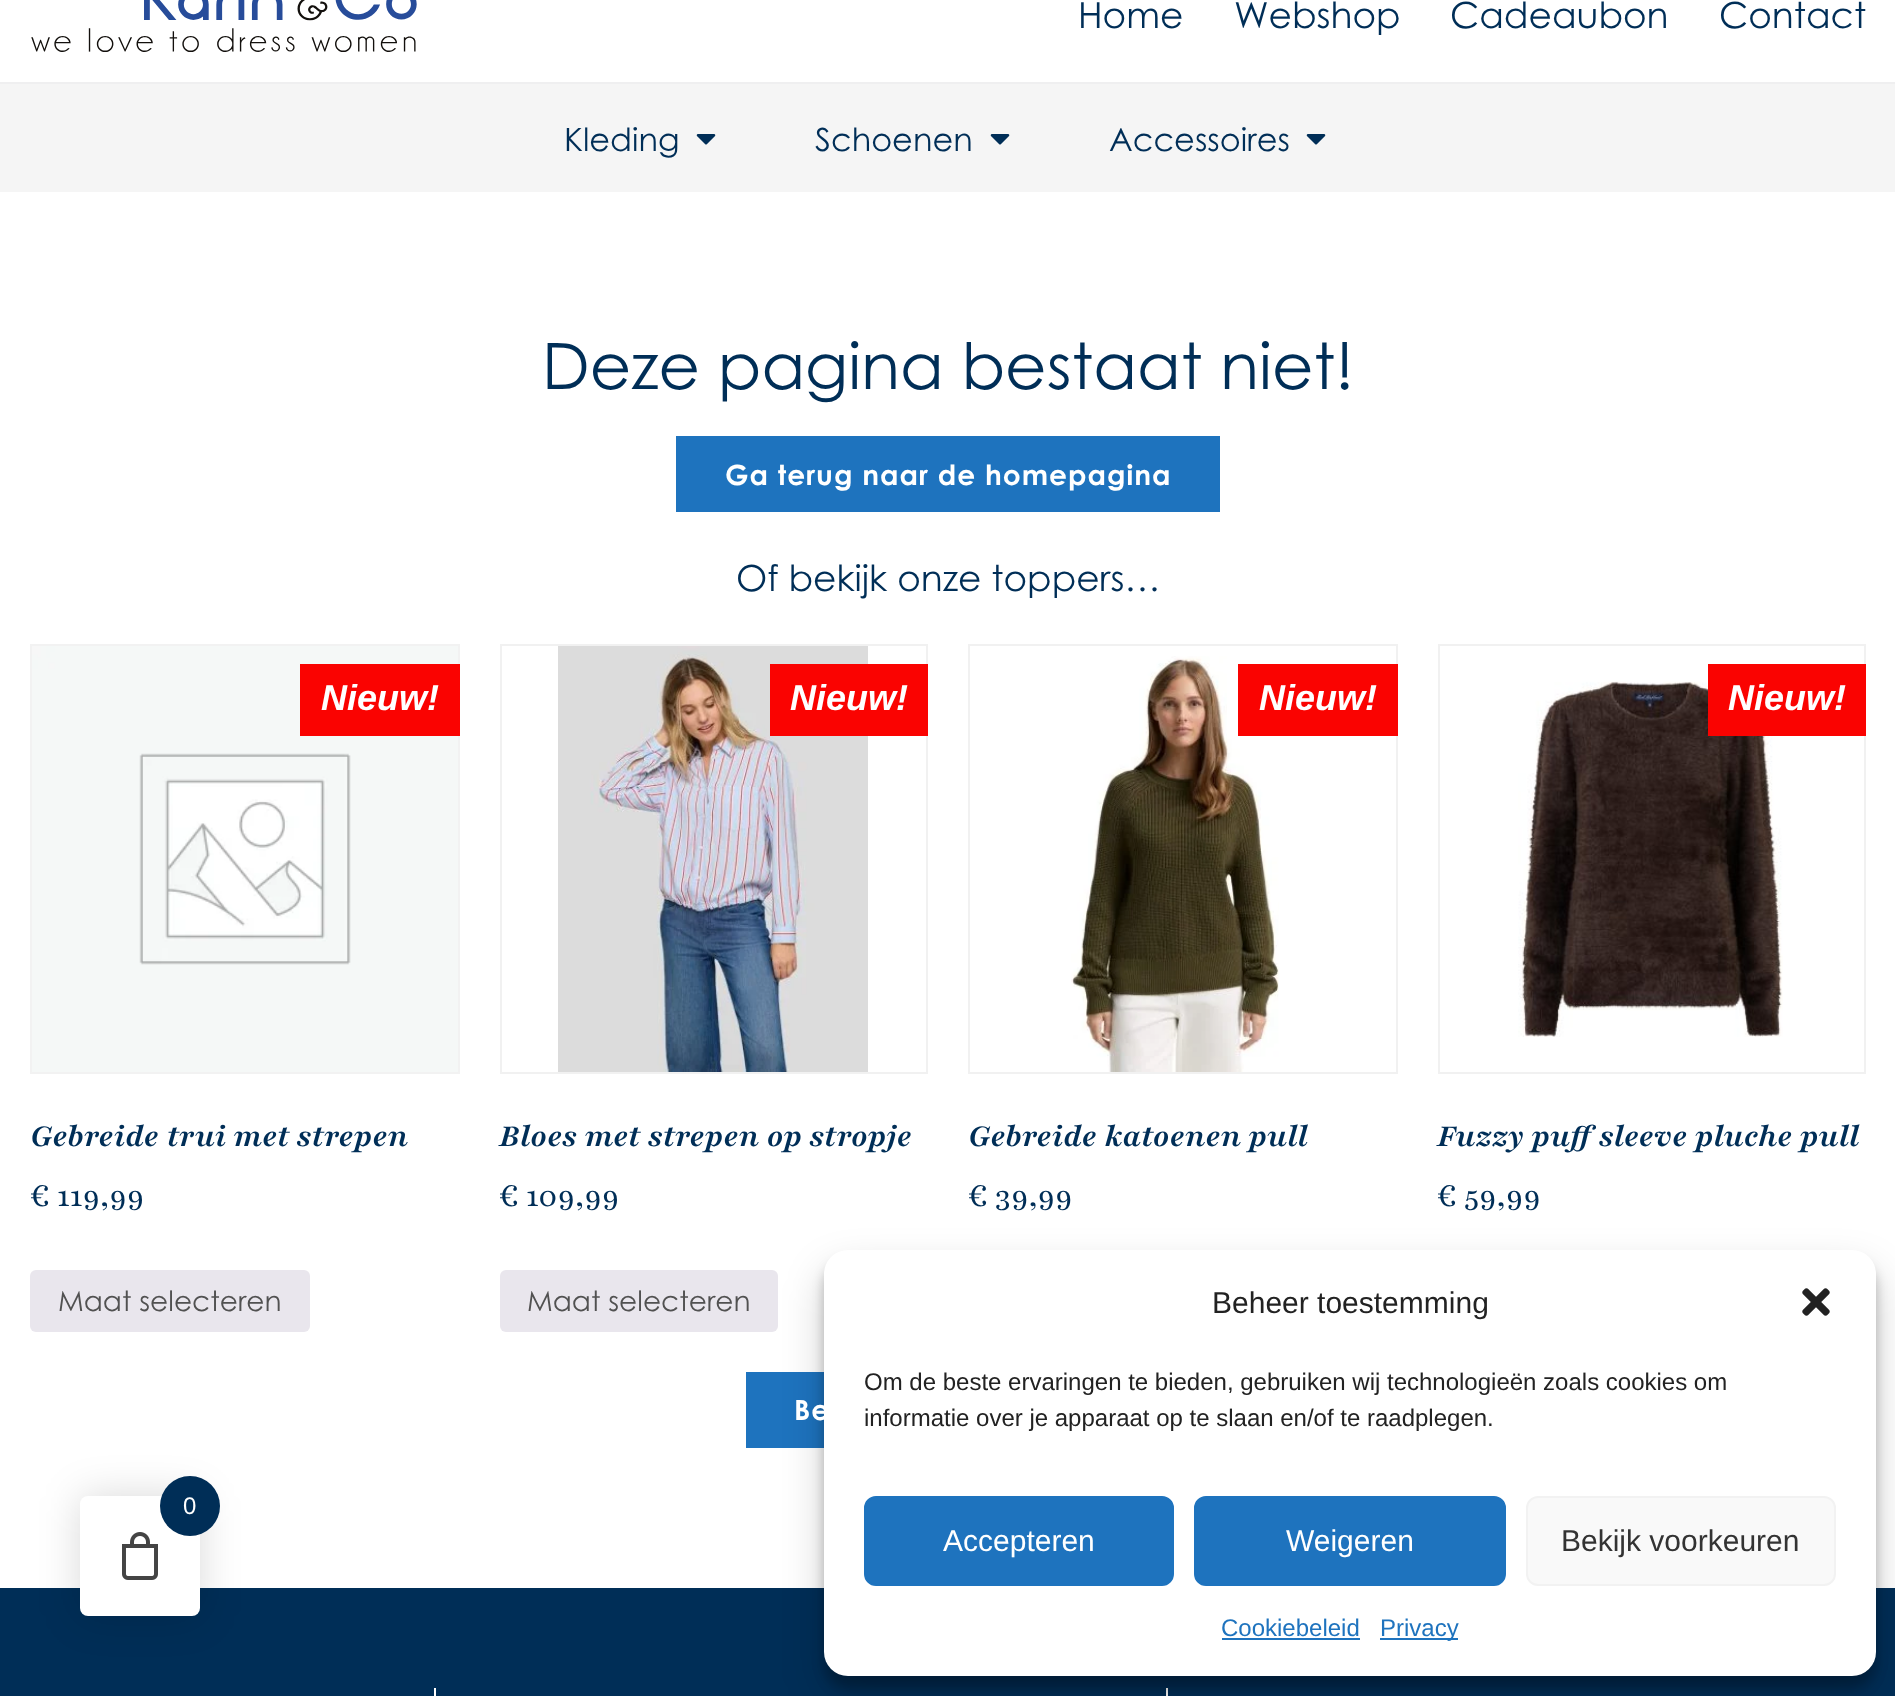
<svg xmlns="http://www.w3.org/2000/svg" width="1895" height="1696">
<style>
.a{font:36px Century Gothic;fill:#002e57}
.b{font:32px Century Gothic;fill:#002e57}
.c{font:64px Century Gothic;fill:#002e57}
.d{font:bold 28px Century Gothic;letter-spacing:1px;fill:#fff}
.e{font:italic bold 36px Liberation Sans;fill:#fff}
.f{font:italic bold 34px 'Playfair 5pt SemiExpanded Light';fill:#002e57}
.g{font:36px 'Playfair 5pt SemiExpanded Light';fill:#002e57}
.h{font:28px Century Gothic;fill:#515151}
.i{font:24px Liberation Sans;fill:#fff}
.j{font:30px Liberation Sans;fill:#222}
.k{font:24px Liberation Sans;fill:#222}
.l{font:30px Liberation Sans;fill:#fff}
.m{font:30px Liberation Sans;fill:#333}
.n{font:24px Liberation Sans;fill:#1e73be}
</style>
<rect width="100%" height="100%" fill="#fff"/>
<path fill="#efeff0" d="M0 82h1895v2H0z"/>
<image href="1.png" x="31" y="0" width="386" height="52"/>
<path fill="#f5f5f5" d="M0 84h1895v108H0z"/>
<image href="2.png" x="696" y="134" width="20" height="11"/>
<image href="2.png" x="990" y="134" width="20" height="11"/>
<image href="2.png" x="1306" y="134" width="20" height="11"/>
<path fill="#1e73be" d="M676 436h544v76H676z"/>
<path fill="none" stroke="#f2f2f2" stroke-width="2" d="M31 645h428v428H31z"/>
<image href="3.png" x="32" y="646" width="426" height="426"/>
<path fill="#fa0301" d="M300 664h160v72H300z"/>
<rect fill="#e9e6ed" x="30" y="1270" width="280" height="62" rx="6"/>
<path fill="none" stroke="#f1f1f1" stroke-width="2" d="M501 645h426v428H501z"/>
<image href="4.png" x="558" y="646" width="310" height="426"/>
<path fill="#fa0301" d="M770 664h158v72H770z"/>
<rect fill="#e9e6ed" x="500" y="1270" width="278" height="62" rx="6"/>
<path fill="none" stroke="#f1f1f1" stroke-width="2" d="M969 645h428v428H969z"/>
<image href="5.png" x="1071" y="656" width="208" height="416"/>
<path fill="#fa0301" d="M1238 664h160v72H1238z"/>
<path fill="none" stroke="#f1f1f1" stroke-width="2" d="M1439 645h426v428H1439z"/>
<image href="6.png" x="1518" y="681" width="265" height="356"/>
<path fill="#fa0301" d="M1708 664h158v72H1708z"/>
<path fill="#1e73be" d="M746 1372h78v76H746z"/>
<path fill="#002e57" d="M0 1588h1895v108H0z"/>
<rect fill="#00000026" filter="blur(20px)" x="80" y="1496" width="120" height="120" rx="8"/>
<rect fill="#fff" x="80" y="1496" width="120" height="120" rx="8"/>
<circle fill="#002e57" cx="190" cy="1506" r="30"/>
<image href="7.png" x="122" y="1532" width="36" height="48"/>
<path fill="#fff" d="M1166 1688h2v8H1166z"/>
<rect fill="#0000003b" filter="blur(6px)" x="824" y="1262" width="1052" height="426" rx="24"/>
<rect fill="#00000030" filter="blur(20px)" x="824" y="1270" width="1052" height="426" rx="24"/>
<rect fill="#fff" x="824" y="1250" width="1052" height="426" rx="24"/>
<image href="8.png" x="1802" y="1288" width="28" height="28"/>
<rect fill="#1e73be" stroke="#1e73be" stroke-width="2" x="865" y="1497" width="308" height="88" rx="11"/>
<rect fill="#1e73be" stroke="#1e73be" stroke-width="2" x="1195" y="1497" width="310" height="88" rx="11"/>
<rect fill="#f9f9f9" stroke="#f2f2f2" stroke-width="2" x="1527" y="1497" width="308" height="88" rx="11"/>
<path fill="#1e73be" d="M1222 1638h138v2H1222z"/>
<path fill="#1e73be" d="M1380 1638h78v2H1380z"/>
<path fill="#fff" d="M434 1688h2v8H434z"/>
<text class="a" x="1078" y="28">Home</text>
<text class="a" x="1234" y="28">Webshop</text>
<text class="a" x="1450" y="28">Cadeaubon</text>
<text class="a" x="1719" y="28">Contact</text>
<text class="b" x="564" y="151">Kleding</text>
<text class="b" x="815" y="151">Schoenen</text>
<text class="b" x="1109" y="151">Accessoires</text>
<text class="c" x="542" y="389">Deze pagina bestaat niet!</text>
<text class="d" x="725" y="485">Ga terug naar de homepagina</text>
<text class="a" x="736" y="591">Of bekijk onze toppers…</text>
<text class="e" x="321" y="710">Nieuw!</text>
<text class="f" x="30" y="1146">Gebreide trui met strepen</text>
<text class="g" x="30" y="1206">€ 119,99</text>
<text class="h" x="58" y="1311">Maat selecteren</text>
<text class="e" x="790" y="710">Nieuw!</text>
<text class="f" x="499" y="1146">Bloes met strepen op stropje</text>
<text class="g" x="499" y="1206">€ 109,99</text>
<text class="h" x="527" y="1311">Maat selecteren</text>
<text class="e" x="1259" y="710">Nieuw!</text>
<text class="f" x="968" y="1146">Gebreide katoenen pull</text>
<text class="g" x="968" y="1206">€ 39,99</text>
<text class="e" x="1728" y="710">Nieuw!</text>
<text class="f" x="1437" y="1146">Fuzzy puff sleeve pluche pull</text>
<text class="g" x="1437" y="1206">€ 59,99</text>
<text class="d" x="794" y="1420">Be</text>
<text class="i" x="183" y="1514">0</text>
<text class="j" x="1212" y="1313">Beheer toestemming</text>
<text class="k" x="864" y="1390">Om de beste ervaringen te bieden, gebruiken wij technologieën zoals cookies om</text>
<text class="k" x="864" y="1426">informatie over je apparaat op te slaan en/of te raadplegen.</text>
<text class="l" x="943" y="1551">Accepteren</text>
<text class="l" x="1286" y="1551">Weigeren</text>
<text class="m" x="1561" y="1551">Bekijk voorkeuren</text>
<text class="n" x="1221" y="1636">Cookiebeleid</text>
<text class="n" x="1380" y="1636">Privacy</text>
</svg>
